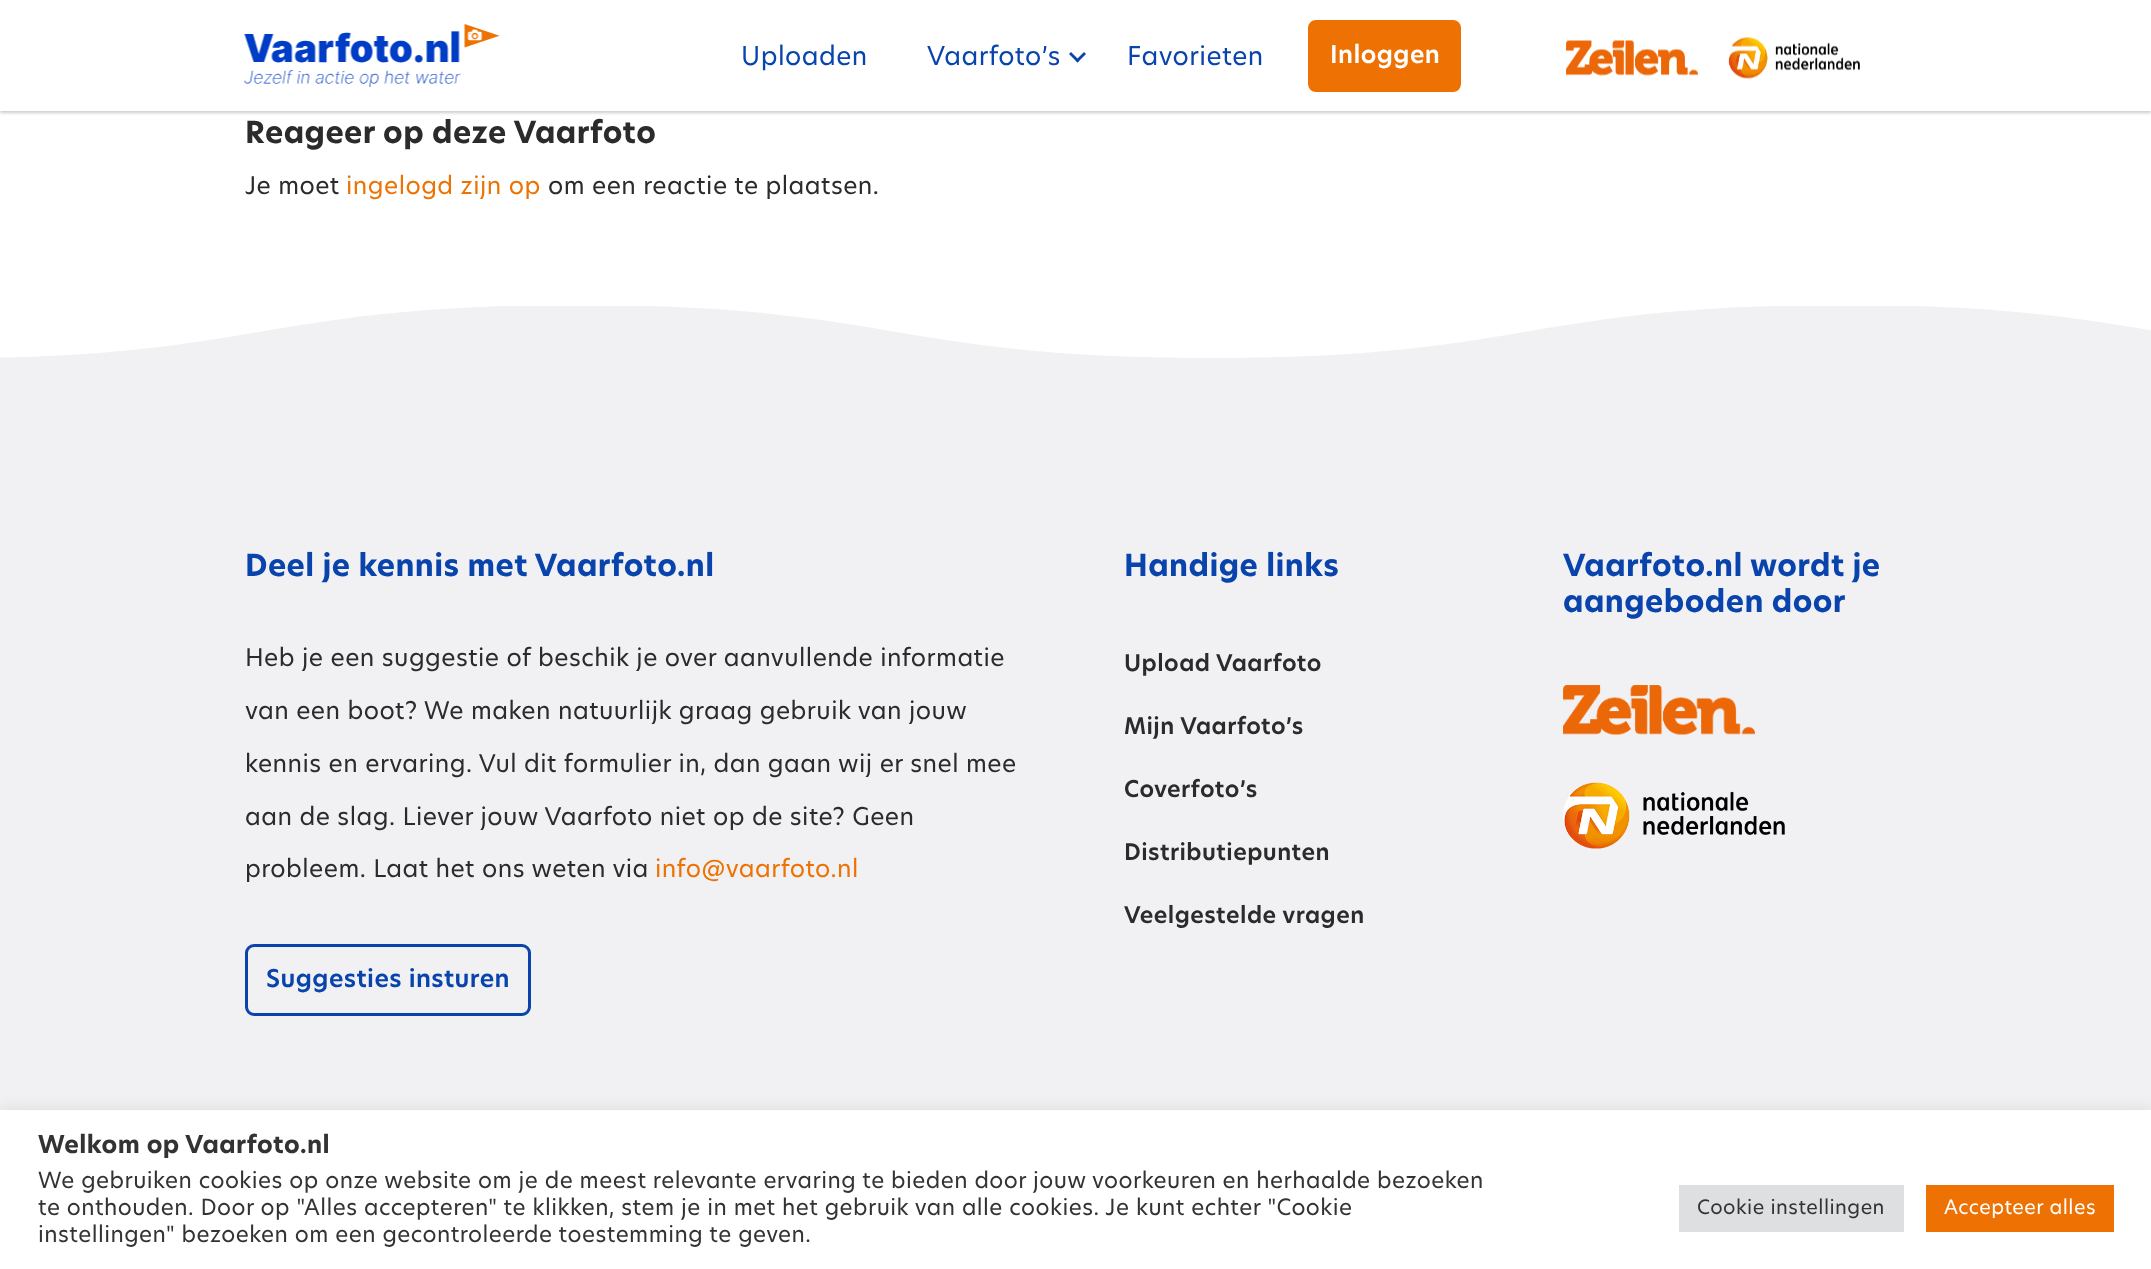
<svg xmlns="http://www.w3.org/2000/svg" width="2151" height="1269">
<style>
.a{font:25.5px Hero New;letter-spacing:0.45px;fill:#0944ad}
.b{font:600 24px Hero New;letter-spacing:0.45px;fill:#fff}
.c{font:bold 30px Hero New;letter-spacing:0.45px;fill:#2b2b2b}
.d{font:24px Hero New;letter-spacing:0.45px;fill:#2b2b2b}
.e{font:24px Hero New;letter-spacing:0.45px;fill:#ed7203}
.f{font:bold 30px Hero New;letter-spacing:0.45px;fill:#0944ad}
.g{font:600 24px Hero New;letter-spacing:0.45px;fill:#0944ad}
.h{font:600 22.5px Hero New;letter-spacing:0.45px;fill:#2b2b2b}
.i{font:bold 24px Hero New;letter-spacing:0.45px;fill:#333}
.j{font:22px Hero New;letter-spacing:0.45px;fill:#333}
.k{font:19.5px Hero New;letter-spacing:0.45px;fill:#333}
.l{font:19.5px Hero New;letter-spacing:0.45px;fill:#fff}
</style>
<defs>
<clipPath id="clip1"><path d="M0 306h2151v104H0z"/></clipPath>
</defs>
<rect width="100%" height="100%" fill="#fff"/>
<path fill="#00000033" filter="blur(1.5px)" d="M0 2h2151v111H0z"/>
<path fill="#fff" d="M0 0h2151v111H0z"/>
<image href="1.png" x="244" y="24" width="256" height="63"/>
<path fill="#0944ad" d="M1084 52l2 2l-8.5 8.5l-2-2z"/>
<path fill="#0944ad" d="M1071 52l8.5 8.5l-2 2l-8.5-8.5z"/>
<rect fill="#ed7203" stroke="#ed7203" stroke-width="3" x="1309.5" y="21.5" width="150" height="69" rx="6.5"/>
<image href="2.png" x="1566" y="40" width="132" height="36"/>
<image href="3.png" x="1728" y="37" width="132" height="42"/>
<g clip-path="url(#clip1)">
<path fill="#f1f1f4" d="M578 305c316 0 316 53 633 53c316 0 316-53 633-53c166 0 245 15 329 29v77h-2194v-53c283-4 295-53 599-53z"/>
</g>
<path fill="#f1f1f4" d="M0 410h2151v700H0z"/>
<rect fill="none" stroke="#0944ad" stroke-width="3" x="246.5" y="945.5" width="283" height="69" rx="7.5"/>
<image href="4.png" x="1563" y="685" width="192" height="50"/>
<image href="5.png" x="1563" y="782" width="222" height="67"/>
<path fill="#acabab4d" filter="blur(7.5px)" d="M0 1109h2151v159H0z"/>
<path fill="#fff" d="M0 1110h2151v159H0z"/>
<path fill="#dedfe0" d="M1679 1185h225v47H1679z"/>
<path fill="#ed7203" d="M1926 1185h188v47H1926z"/>
<text class="a" x="741" y="65">Uploaden</text>
<text class="a" x="927" y="65">Vaarfoto’s</text>
<text class="a" x="1127" y="65">Favorieten</text>
<text class="b" x="1330" y="63">Inloggen</text>
<text class="c" x="245" y="143">Reageer op deze Vaarfoto</text>
<text class="d" x="245" y="194">Je moet</text>
<text class="e" x="346" y="194">ingelogd zijn op</text>
<text class="d" x="548" y="194">om een reactie te plaatsen.</text>
<text class="f" x="245" y="576">Deel je kennis met Vaarfoto.nl</text>
<text class="d" x="245" y="666">Heb je een suggestie of beschik je over aanvullende informatie</text>
<text class="d" x="245" y="719">van een boot? We maken natuurlijk graag gebruik van jouw</text>
<text class="d" x="245" y="772">kennis en ervaring. Vul dit formulier in, dan gaan wij er snel mee</text>
<text class="d" x="245" y="825">aan de slag. Liever jouw Vaarfoto niet op de site? Geen</text>
<text class="d" x="245" y="877">probleem. Laat het ons weten via</text>
<text class="e" x="655" y="877">info@vaarfoto.nl</text>
<text class="g" x="266" y="987">Suggesties insturen</text>
<text class="f" x="1124" y="576">Handige links</text>
<text class="h" x="1124" y="671">Upload Vaarfoto</text>
<text class="h" x="1124" y="734">Mijn Vaarfoto’s</text>
<text class="h" x="1124" y="797">Coverfoto’s</text>
<text class="h" x="1124" y="860">Distributiepunten</text>
<text class="h" x="1124" y="923">Veelgestelde vragen</text>
<text class="f" x="1563" y="576">Vaarfoto.nl wordt je</text>
<text class="f" x="1563" y="612">aangeboden door</text>
<text class="i" x="38" y="1153">Welkom op Vaarfoto.nl</text>
<text class="j" x="38" y="1188">We gebruiken cookies op onze website om je de meest relevante ervaring te bieden door jouw voorkeuren en herhaalde bezoeken</text>
<text class="j" x="38" y="1215">te onthouden. Door op "Alles accepteren" te klikken, stem je in met het gebruik van alle cookies. Je kunt echter "Cookie</text>
<text class="j" x="38" y="1242">instellingen" bezoeken om een gecontroleerde toestemming te geven.</text>
<text class="k" x="1697" y="1214">Cookie instellingen</text>
<text class="l" x="1944" y="1214">Accepteer alles</text>
</svg>
